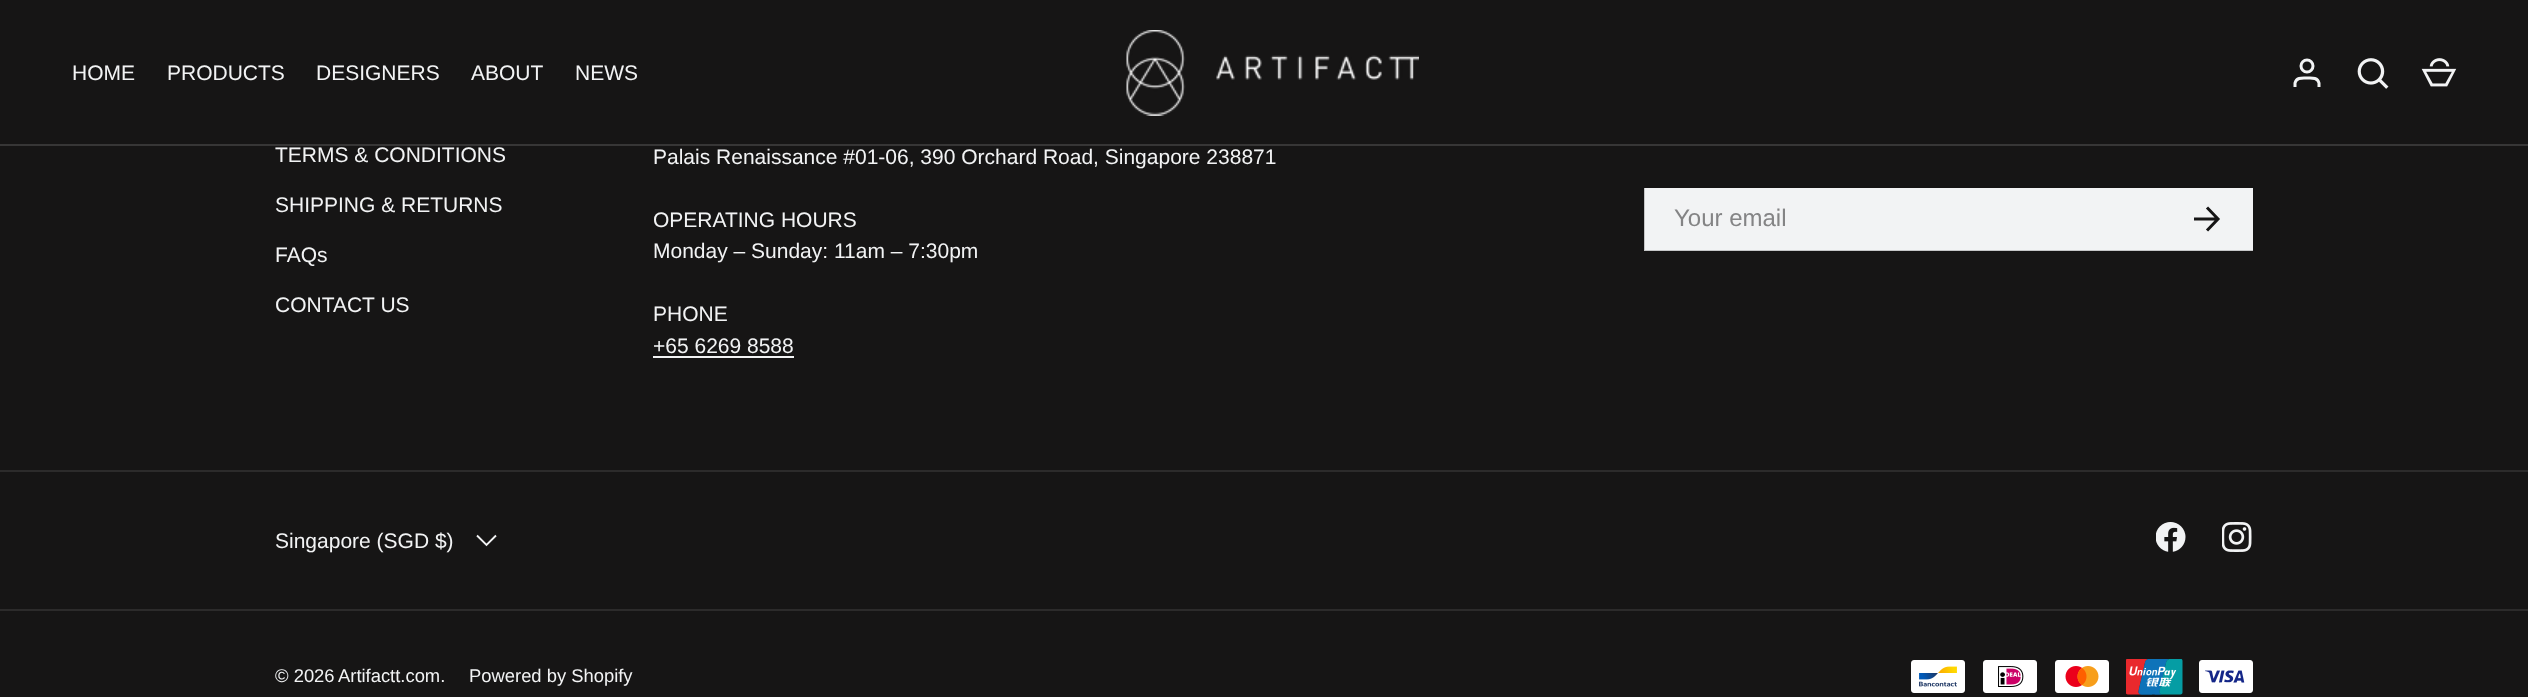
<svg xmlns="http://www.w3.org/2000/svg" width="2528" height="697">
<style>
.a{font:21px Liberation Sans;fill:#f2f3f4}
.b{font:24px Liberation Sans;fill:#848485}
.c{font:18.4px Liberation Sans;fill:#f2f3f4}
</style>
<rect width="100%" height="100%" fill="#161515"/>
<image href="1.png" x="1126" y="30" width="293" height="86"/>
<circle fill="none" stroke="#f2f3f4" stroke-width="3" cx="2307" cy="66" r="6"/>
<path fill="none" stroke="#f2f3f4" stroke-width="3" d="M2319 87v-4c-1.5-6-7.5-5-12-5c-4.5 0-10.5-1-12 5v4"/>
<image href="2.png" x="2357" y="58" width="32" height="31"/>
<image href="3.png" x="2421" y="58" width="36" height="29"/>
<path fill="#373636" d="M0 144h2528v2H0z"/>
<path fill="#f2f3f4" d="M653 356h141v2H653z"/>
<path fill="#f2f3f4" d="M1644 188h609v63H1644z"/>
<path fill="none" stroke="#16151533" stroke-width="2" d="M1644 187h610v64H1644z"/>
<path fill="none" stroke="#161515" stroke-width="3" d="M2207 230.5l12-12.5m-25 1h23.5m-10.5-11.5l12 12.5"/>
<path fill="#2c2b2b" d="M0 470h2528v2H0z"/>
<path fill="none" stroke="#f2f3f4" stroke-width="1.9" d="M496 535.5l-9.5 9.5l-9.5-9.5"/>
<image href="4.png" x="2156" y="522" width="30" height="30"/>
<image href="5.png" x="2222" y="522" width="30" height="30"/>
<path fill="#2c2b2b" d="M0 609h2528v2H0z"/>
<image href="6.png" x="1911" y="660" width="54" height="33"/>
<image href="7.png" x="1983" y="660" width="54" height="33"/>
<image href="8.png" x="2055" y="660" width="54" height="33"/>
<image href="9.png" x="2126" y="659" width="57" height="36"/>
<image href="10.png" x="2199" y="660" width="54" height="33"/>
<text class="a" x="72" y="80">HOME</text>
<text class="a" x="167" y="80">PRODUCTS</text>
<text class="a" x="316" y="80">DESIGNERS</text>
<text class="a" x="471" y="80">ABOUT</text>
<text class="a" x="575" y="80">NEWS</text>
<text class="a" x="275" y="162">TERMS &amp; CONDITIONS</text>
<text class="a" x="275" y="212">SHIPPING &amp; RETURNS</text>
<text class="a" x="275" y="262">FAQs</text>
<text class="a" x="275" y="312">CONTACT US</text>
<text class="a" x="653" y="164">Palais Renaissance #01-06, 390 Orchard Road, Singapore 238871</text>
<text class="a" x="653" y="227">OPERATING HOURS</text>
<text class="a" x="653" y="258">Monday – Sunday: 11am – 7:30pm</text>
<text class="a" x="653" y="321">PHONE</text>
<text class="a" x="653" y="353">+65 6269 8588</text>
<text class="b" x="1674" y="226">Your email</text>
<text class="a" x="275" y="548">Singapore (SGD $)</text>
<text class="c" x="275" y="682">© 2026</text>
<text class="c" x="338" y="682">Artifactt.com.</text>
<text class="c" x="469" y="682">Powered by Shopify</text>
</svg>
